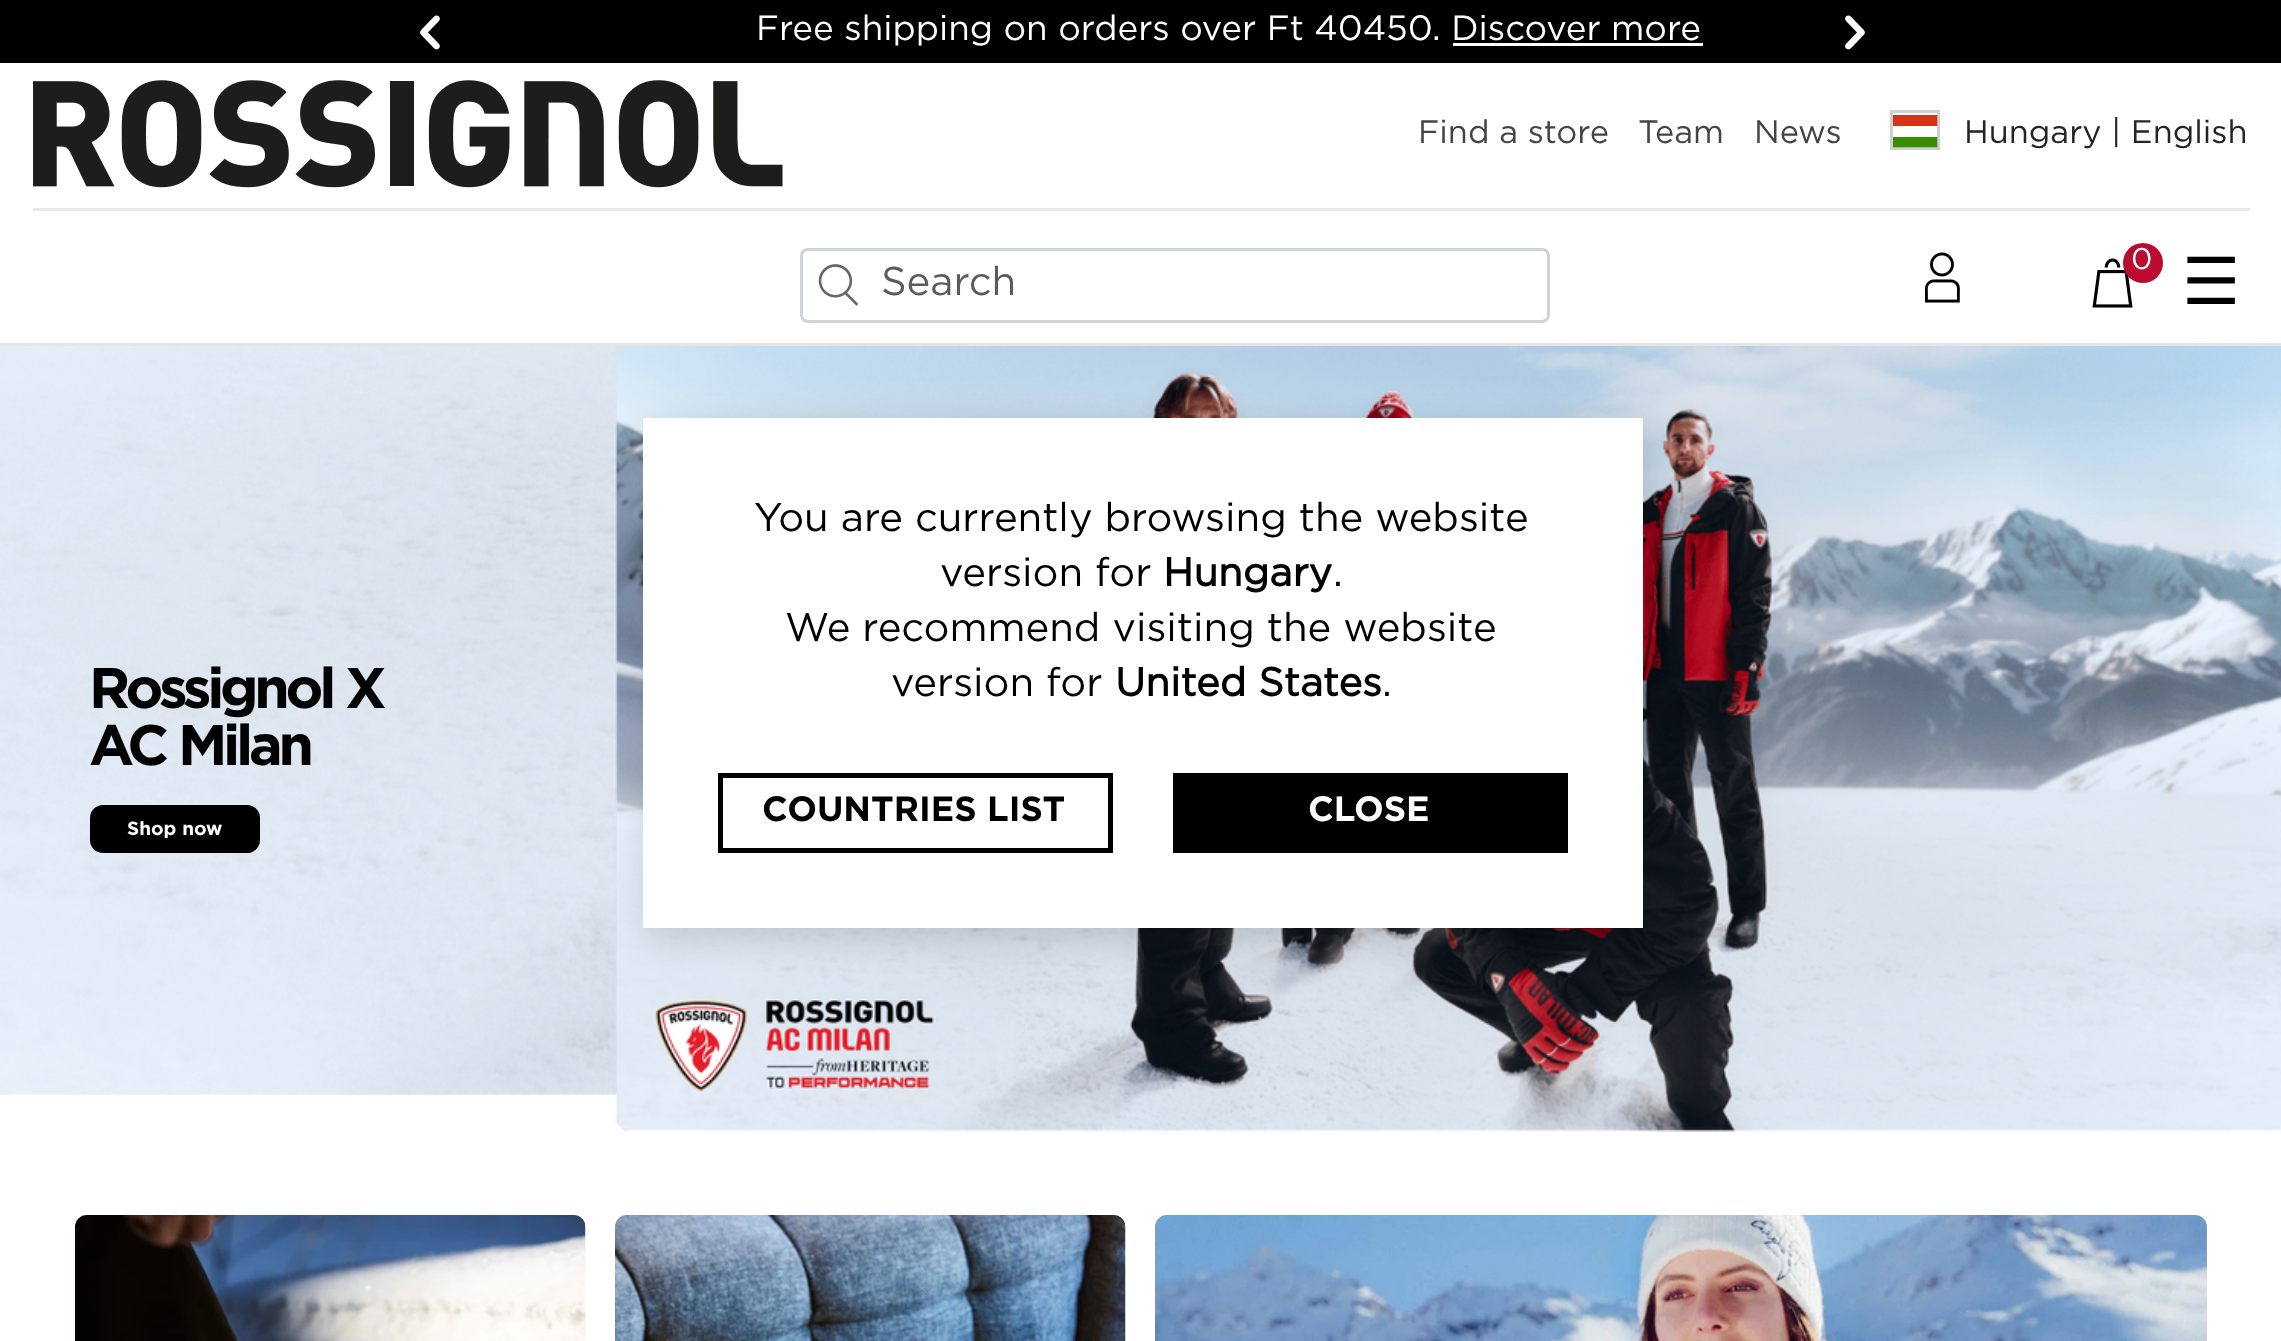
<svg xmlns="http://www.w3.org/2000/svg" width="2281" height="1341">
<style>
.a{font:35px Gotham;fill:#fff}
.b{font:32.5px Gotham;fill:#444}
.c{font:32.5px Gotham;fill:#212529}
.d{font:40px Gotham;fill:#595c5f}
.e{font:30px Gotham;fill:#fff}
.f{font:65px DejaVu Sans;fill:#000}
.g{font:bold 57px Gotham;letter-spacing:-4.25px;fill:#000}
.h{font:bold 19px Gotham;fill:#fff}
.i{font:40px Gotham;fill:#000}
.j{font:bold 40px 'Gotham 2';fill:#000}
.k{font:bold 35px Gotham;fill:#000}
.l{font:bold 35px Gotham;fill:#fff}
</style>
<rect width="100%" height="100%" fill="#fff"/>
<path fill="#000" d="M0 0h2281v63H0z"/>
<image href="1.png" x="420" y="15" width="20" height="35"/>
<path fill="#fff" d="M1453 43h250v3H1453z"/>
<image href="2.png" x="1845" y="15" width="20" height="35"/>
<path fill="#e9e9e9" d="M33 208h2217v3H33z"/>
<image href="3.png" x="33" y="80" width="750" height="108"/>
<path fill="#388d00" d="M1893 137h45v11H1893z"/>
<path fill="#d43516" d="M1893 115h45v11H1893z"/>
<path fill="none" stroke="#c3c3c3cc" stroke-width="3" d="M1891.5 111.5h47v37H1891.5z"/>
<rect fill="none" stroke="#ced4da" stroke-width="3" x="801.5" y="249.5" width="747" height="72" rx="6.5"/>
<image href="4.png" x="818" y="264" width="41" height="42"/>
<image href="5.png" x="1925" y="252" width="35" height="51"/>
<image href="6.png" x="2092" y="258" width="41" height="50"/>
<circle fill="#ba0c2f" cx="2143" cy="263" r="20"/>
<path fill="#e5e5e5" d="M0 343h2281v3H0z"/>
<image href="7.png" x="0" y="346" width="2281" height="786"/>
<rect fill="#000" x="90" y="805" width="170" height="48" rx="13"/>
<image href="8.png" x="75" y="1215" width="511" height="126"/>
<image href="9.png" x="615" y="1215" width="511" height="126"/>
<image href="10.png" x="1155" y="1215" width="1052" height="126"/>
<path fill="#00000026" filter="blur(17.5px)" d="M648 428h1000v510H648z"/>
<path fill="#fff" d="M643 418h1000v510H643z"/>
<path fill="none" stroke="#000" stroke-width="5" d="M720.5 775.5h390v75H720.5z"/>
<path fill="#000" d="M1173 773h395v80H1173z"/>
<text class="a" x="756" y="40">Free shipping on orders over Ft 40450. Discover more</text>
<text class="b" x="1418" y="143">Find a store</text>
<text class="b" x="1638" y="143">Team</text>
<text class="b" x="1754" y="143">News</text>
<text class="c" x="1964" y="143">Hungary | English</text>
<text class="d" x="881" y="295">Search</text>
<text class="e" x="2131" y="269">0</text>
<text class="f" x="2182" y="304">☰</text>
<text class="g" x="89" y="708">Rossignol X</text>
<text class="g" x="89" y="765">AC Milan</text>
<text class="h" x="127" y="835">Shop now</text>
<text class="i" x="754" y="531">You are currently browsing the website</text>
<text class="i" x="940" y="586">version for</text>
<text class="j" x="1163" y="586">Hungary</text>
<text class="i" x="1333" y="586">.</text>
<text class="i" x="785" y="641">We recommend visiting the website</text>
<text class="i" x="891" y="696">version for</text>
<text class="j" x="1115" y="696">United States</text>
<text class="i" x="1382" y="696">.</text>
<text class="k" x="762" y="821">COUNTRIES LIST</text>
<text class="l" x="1308" y="821">CLOSE</text>
</svg>
